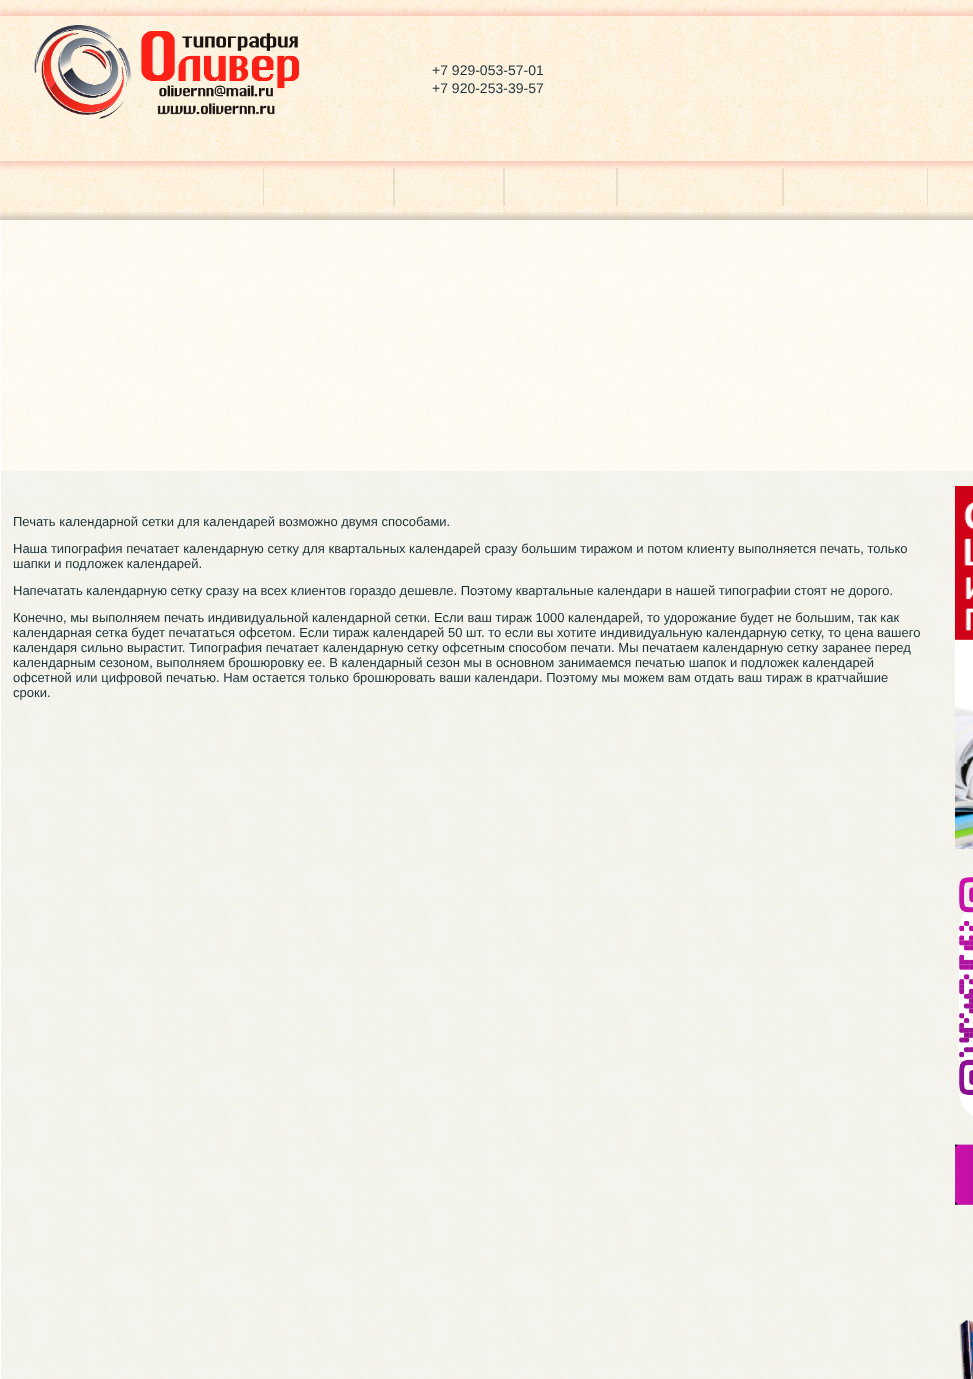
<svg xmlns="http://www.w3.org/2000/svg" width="973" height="1379">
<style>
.a{font:14px Liberation Sans;fill:#1b3136}
.b{font:13px Liberation Sans;fill:#1b3136}
</style>
<defs>
<clipPath id="clip1"><path d="M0 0h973v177h-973zm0 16h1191v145h-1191z" clip-rule="evenodd"/></clipPath>
<clipPath id="clip2"><path d="M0 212h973v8H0z"/></clipPath>
</defs>
<rect width="100%" height="100%" fill="#fff"/>
<image href="1.png" x="0" y="0" width="973" height="1379"/>
<g clip-path="url(#clip1)">
<path fill="#ec232333" filter="blur(3.5px)" d="M-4 12h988v153H-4z"/>
</g>
<image href="2.png" x="34" y="25" width="265" height="94"/>
<g clip-path="url(#clip2)">
<path fill="#00000033" filter="blur(3.5px)" d="M-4 216h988v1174H-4z"/>
</g>
<path fill="#5050501f" d="M393 168h1v38H393z"/>
<path fill="#5050501f" d="M263 168h1v38H263z"/>
<path fill="#5050501f" d="M503 168h1v38H503z"/>
<path fill="#5050501f" d="M394 168h1v38H394z"/>
<path fill="#5050501f" d="M616 168h1v38H616z"/>
<path fill="#5050501f" d="M504 168h1v38H504z"/>
<path fill="#5050501f" d="M782 168h1v38H782z"/>
<path fill="#5050501f" d="M617 168h1v38H617z"/>
<path fill="#5050501f" d="M927 168h1v38H927z"/>
<path fill="#5050501f" d="M783 168h1v38H783z"/>
<path fill="#fff" d="M0 220h973v1H0z"/>
<path fill="#fff" d="M0 220h1v1159H0z"/>
<path fill="#ffffff99" d="M1 221h972v250H1z"/>
<path fill="#ffffff4d" d="M1 471h972v908H1z"/>
<path fill="#e7f1f366" d="M1 471h939v908H1z"/>
<path fill="#e7f1f366" d="M940 471h33v908H940z"/>
<image href="3.png" x="955" y="486" width="18" height="363"/>
<image href="4.png" x="955" y="877" width="18" height="502"/>
<text class="a" x="432" y="75">+7 929-053-57-01</text>
<text class="a" x="432" y="93">+7 920-253-39-57</text>
<text class="b" x="13" y="526">Печать календарной сетки для календарей возможно двумя способами.</text>
<text class="b" x="13" y="553">Наша типография печатает календарную сетку для квартальных календарей сразу большим тиражом и потом клиенту выполняется печать, только</text>
<text class="b" x="13" y="568">шапки и подложек календарей.</text>
<text class="b" x="13" y="595">Напечатать календарную сетку сразу на всех клиентов гораздо дешевле. Поэтому квартальные календари в нашей типографии стоят не дорого.</text>
<text class="b" x="13" y="622">Конечно, мы выполняем печать индивидуальной календарной сетки. Если ваш тираж 1000 календарей, то удорожание будет не большим, так как</text>
<text class="b" x="13" y="637">календарная сетка будет печататься офсетом. Если тираж календарей 50 шт. то если вы хотите индивидуальную календарную сетку, то цена вашего</text>
<text class="b" x="13" y="652">календаря сильно вырастит. Типография печатает календарную сетку офсетным способом печати. Мы печатаем календарную сетку заранее перед</text>
<text class="b" x="13" y="667">календарным сезоном, выполняем брошюровку ее. В календарный сезон мы в основном занимаемся печатью шапок и подложек календарей</text>
<text class="b" x="13" y="682">офсетной или цифровой печатью. Нам остается только брошюровать ваши календари. Поэтому мы можем вам отдать ваш тираж в кратчайшие</text>
<text class="b" x="13" y="697">сроки.</text>
</svg>
